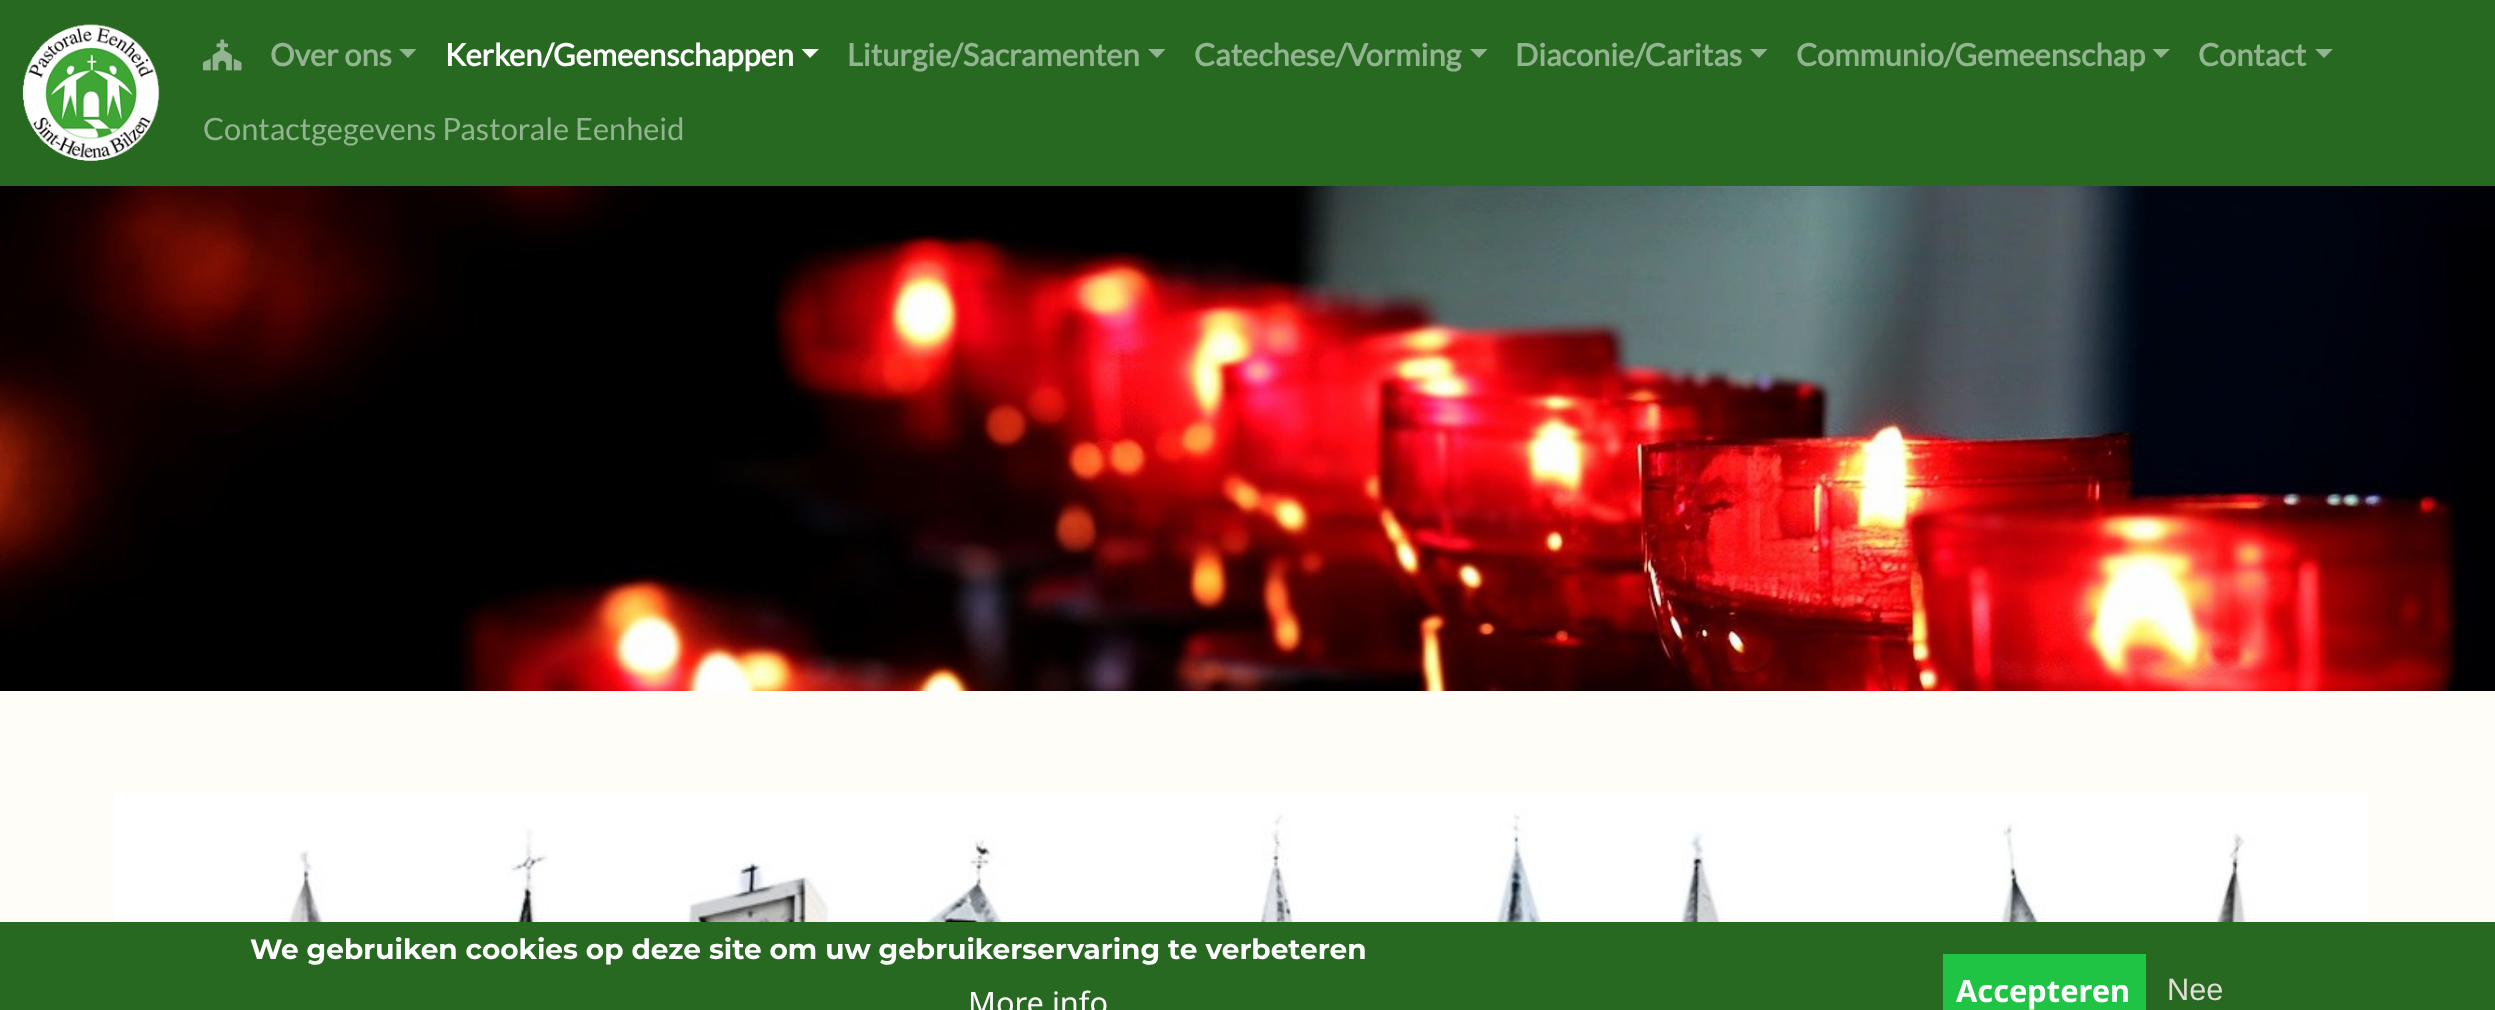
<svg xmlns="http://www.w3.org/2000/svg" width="2495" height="1010">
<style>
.a{font:bold 30.75px Lato;fill:#93b490}
.b{font:bold 30.75px Lato;fill:#fff}
.c{font:30.75px Lato;fill:#93b490}
.d{font:bold 28px Montserrat;fill:#fff}
.e{font:30.75px Noto Sans;fill:#fff}
.f{font:bold 30.75px Noto Sans;fill:#fff}
.g{font:30.75px Liberation Sans;fill:#e0ddd8}
</style>
<rect width="100%" height="100%" fill="#fff"/>
<path fill="#276921" d="M0 0h2495v186H0z"/>
<image href="1.png" x="22" y="24" width="138" height="137"/>
<image href="2.png" x="203" y="39" width="39" height="32"/>
<path fill="#93b490" d="M399 49h17.5l-8.5 9z"/>
<path fill="#fff" d="M801.5 49h17.5l-9 9z"/>
<path fill="#93b490" d="M1148 49h17.5l-8.5 9z"/>
<path fill="#93b490" d="M1470 49h17.5l-8.5 9z"/>
<path fill="#93b490" d="M1750 49h17.5l-8.5 9z"/>
<path fill="#93b490" d="M2152.5 49h17.5l-9 9z"/>
<path fill="#93b490" d="M2315 49h18l-9 9z"/>
<image href="3.png" x="0" y="186" width="2495" height="505"/>
<path fill="#fffdf7" d="M0 691h2495v231H0z"/>
<image href="4.png" x="114" y="793" width="2254" height="129"/>
<path fill="#276921" d="M0 922h2495v88H0z"/>
<path fill="#1fc445" d="M1943 954h203v56H1943z"/>
<text class="a" x="270" y="66">Over ons</text>
<text class="b" x="445" y="66">Kerken/Gemeenschappen</text>
<text class="a" x="847" y="66">Liturgie/Sacramenten</text>
<text class="a" x="1194" y="66">Catechese/Vorming</text>
<text class="a" x="1515" y="66">Diaconie/Caritas</text>
<text class="a" x="1796" y="66">Communio/Gemeenschap</text>
<text class="a" x="2198" y="66">Contact</text>
<text class="c" x="203" y="140">Contactgegevens Pastorale Eenheid</text>
<text class="d" x="250" y="959">We gebruiken cookies op deze site om uw gebruikerservaring te verbeteren</text>
<text class="e" x="968" y="1014">More info</text>
<text class="f" x="1956" y="1002">Accepteren</text>
<text class="g" x="2167" y="1000">Nee</text>
</svg>
